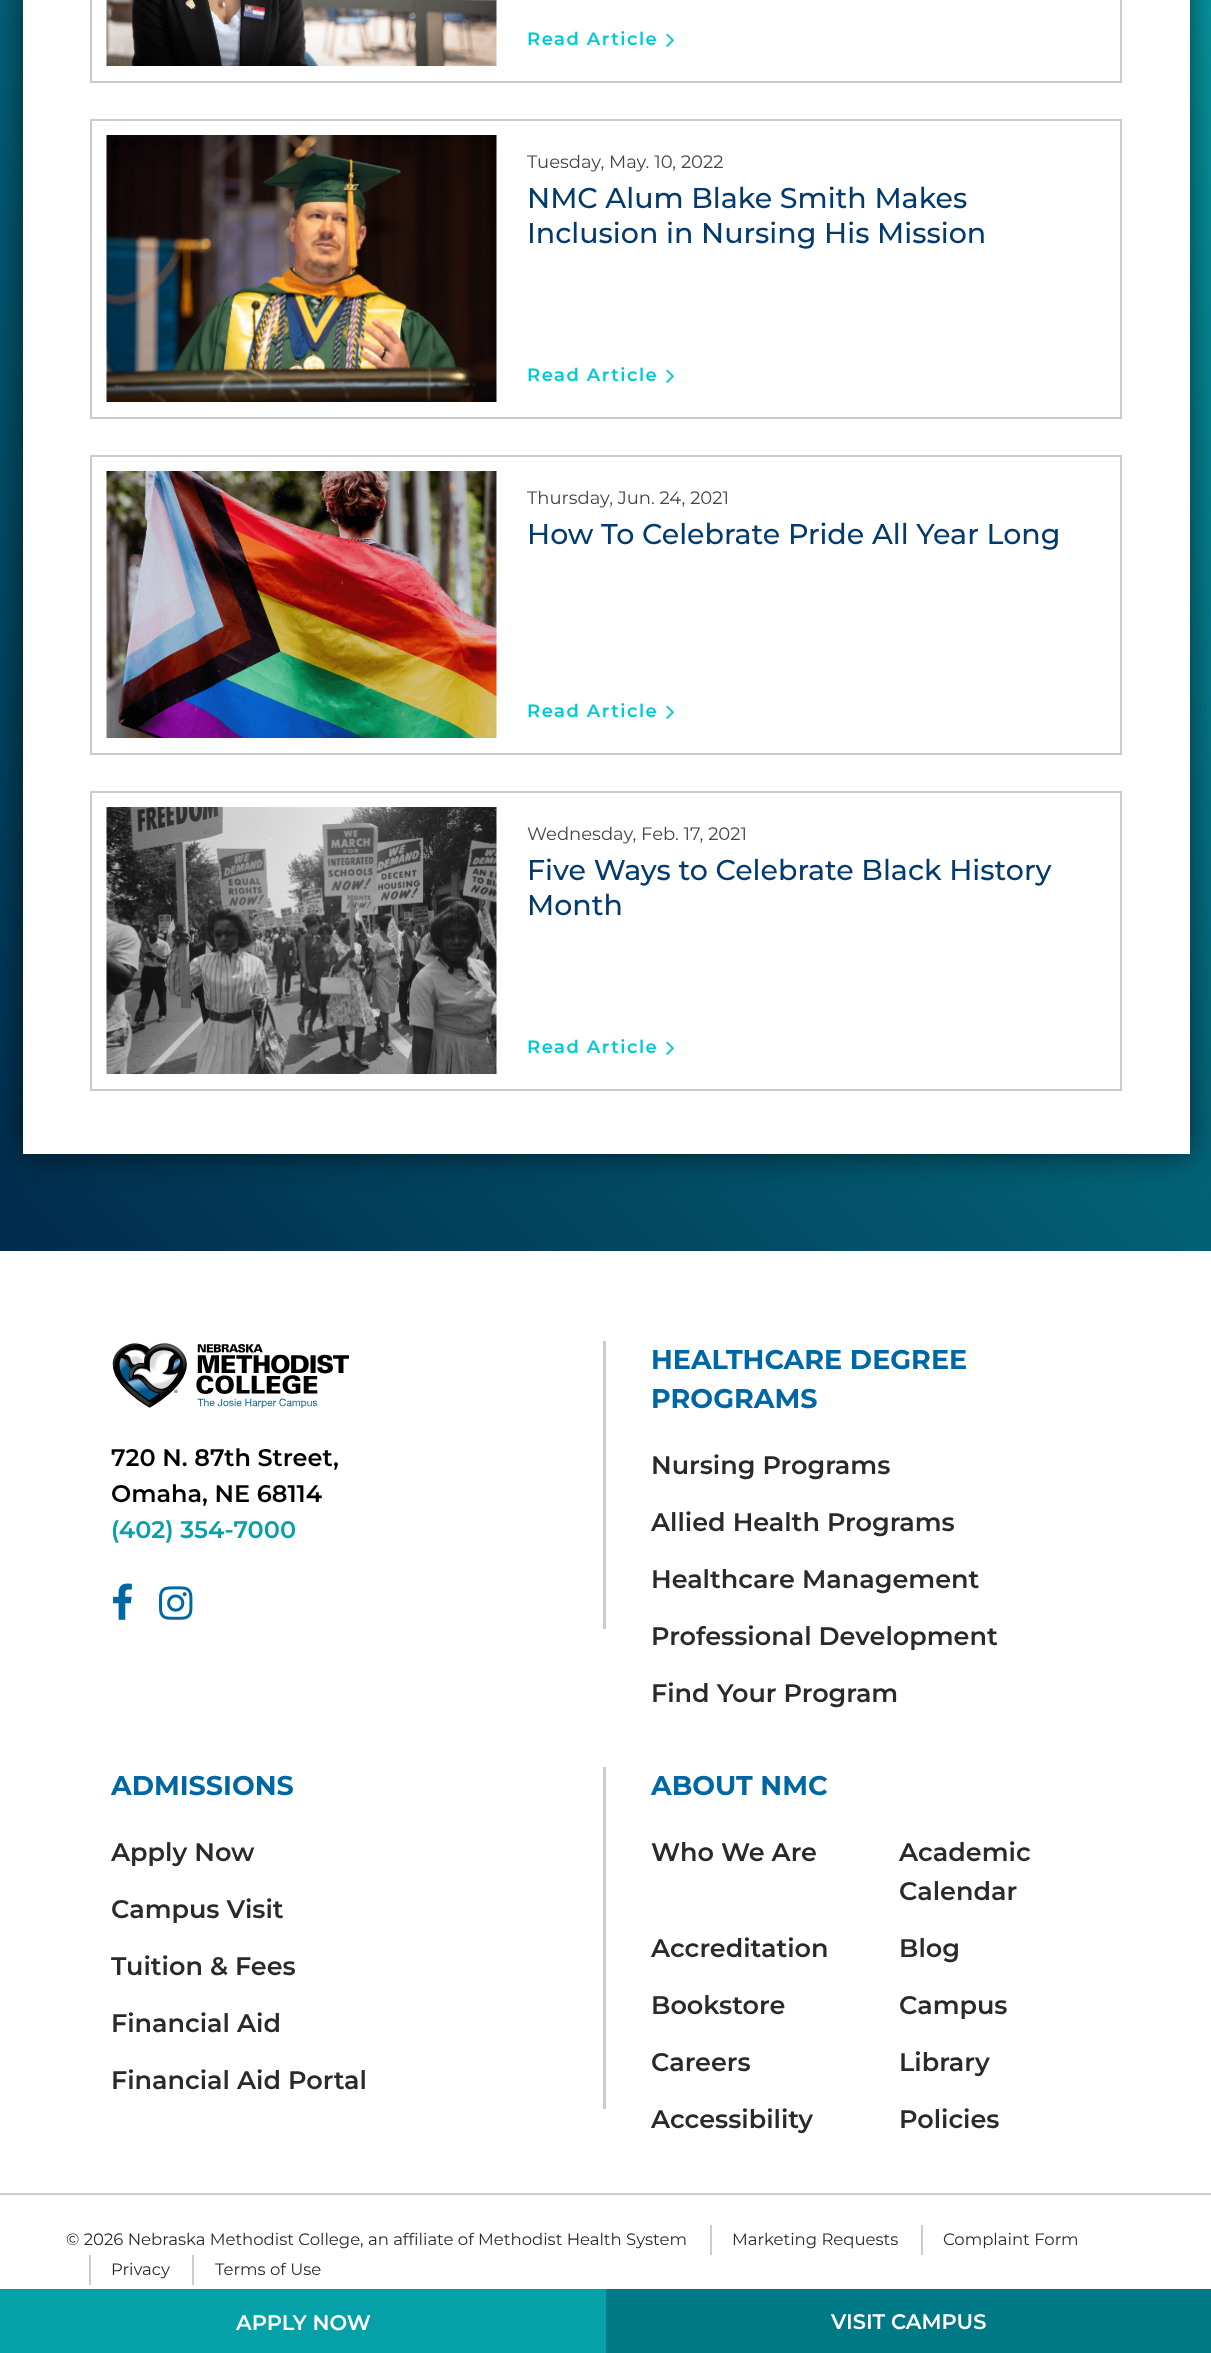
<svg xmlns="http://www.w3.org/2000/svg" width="1211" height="2353">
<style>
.a{font:600 18px Montserrat;letter-spacing:1.5px;fill:#00c8d5}
.b{font:18px Montserrat;fill:#454545}
.c{font:500 28.5px Montserrat;fill:#033b6e}
.d{font:600 24px Montserrat;fill:#000}
.e{font:600 24px Montserrat;fill:#05a0a8}
.f{font:bold 27px Montserrat;fill:#0067a5}
.g{font:600 25.5px Montserrat;fill:#2a2a2a}
.h{font:16.5px Montserrat;fill:#2a2a2a}
.i{font:600 21px Montserrat;fill:#fff}
</style>
<defs>
<linearGradient id="g1" gradientUnits="userSpaceOnUse" x1="-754" y1="497" x2="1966" y2="-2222"><stop offset="0" stop-color="#012b4c"/><stop offset="0.5" stop-color="#05a0a8"/><stop offset="1" stop-color="#034472"/></linearGradient>
</defs>
<rect width="100%" height="100%" fill="#fff"/>
<path fill="url(#g1)" d="M0 0h1211v1251H0z"/>
<path fill="#00000099" filter="blur(15px)" d="M23 -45h1167v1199H23z"/>
<path fill="#fff" d="M23 0h1167v1154H23z"/>
<path fill="none" stroke="#cbcbcb" stroke-width="2" d="M91 -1h1030v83H91z"/>
<image href="1.png" x="106" y="0" width="391" height="66"/>
<image href="2.png" x="666" y="33" width="8" height="14"/>
<path fill="none" stroke="#cbcbcb" stroke-width="2" d="M91 120h1030v298H91z"/>
<image href="3.png" x="106" y="135" width="391" height="267"/>
<image href="2.png" x="666" y="369" width="8" height="14"/>
<path fill="none" stroke="#cbcbcb" stroke-width="2" d="M91 456h1030v298H91z"/>
<image href="4.png" x="106" y="471" width="391" height="267"/>
<image href="2.png" x="666" y="705" width="8" height="14"/>
<path fill="none" stroke="#cbcbcb" stroke-width="2" d="M91 792h1030v298H91z"/>
<image href="5.png" x="106" y="807" width="391" height="267"/>
<image href="2.png" x="666" y="1041" width="8" height="14"/>
<path fill="#ccc" d="M603 1341h3v288H603z"/>
<image href="6.png" x="112" y="1343" width="237" height="65"/>
<image href="7.png" x="113" y="1583" width="19" height="37"/>
<image href="8.png" x="159" y="1586" width="34" height="34"/>
<path fill="#ccc" d="M603 1767h3v342H603z"/>
<path fill="#ccc" d="M0 2193h1211v2H0z"/>
<path fill="#ccc" d="M710 2225h2v30H710z"/>
<path fill="#ccc" d="M921 2225h2v30H921z"/>
<path fill="#ccc" d="M89 2255h2v30H89z"/>
<path fill="#ccc" d="M192 2255h2v30H192z"/>
<path fill="#05a0a8" d="M0 2289h606v64H0z"/>
<path fill="#007987" d="M606 2289h605v64H606z"/>
<text class="a" x="527" y="45">Read Article</text>
<text class="b" x="527" y="168">Tuesday, May. 10, 2022</text>
<text class="c" x="527" y="208">NMC Alum Blake Smith Makes</text>
<text class="c" x="527" y="243">Inclusion in Nursing His Mission</text>
<text class="a" x="527" y="381">Read Article</text>
<text class="b" x="527" y="504">Thursday, Jun. 24, 2021</text>
<text class="c" x="527" y="544">How To Celebrate Pride All Year Long</text>
<text class="a" x="527" y="717">Read Article</text>
<text class="b" x="527" y="840">Wednesday, Feb. 17, 2021</text>
<text class="c" x="527" y="880">Five Ways to Celebrate Black History</text>
<text class="c" x="527" y="915">Month</text>
<text class="a" x="527" y="1053">Read Article</text>
<text class="d" x="111" y="1466">720 N. 87th Street,</text>
<text class="d" x="111" y="1502">Omaha, NE 68114</text>
<text class="e" x="111" y="1538">(402) 354-7000</text>
<text class="f" x="651" y="1369">HEALTHCARE DEGREE</text>
<text class="f" x="651" y="1408">PROGRAMS</text>
<text class="g" x="651" y="1474">Nursing Programs</text>
<text class="g" x="651" y="1531">Allied Health Programs</text>
<text class="g" x="651" y="1588">Healthcare Management</text>
<text class="g" x="651" y="1645">Professional Development</text>
<text class="g" x="651" y="1702">Find Your Program</text>
<text class="f" x="111" y="1795">ADMISSIONS</text>
<text class="g" x="111" y="1861">Apply Now</text>
<text class="g" x="111" y="1918">Campus Visit</text>
<text class="g" x="111" y="1975">Tuition &amp; Fees</text>
<text class="g" x="111" y="2032">Financial Aid</text>
<text class="g" x="111" y="2089">Financial Aid Portal</text>
<text class="f" x="651" y="1795">ABOUT NMC</text>
<text class="g" x="651" y="1861">Who We Are</text>
<text class="g" x="899" y="1861">Academic</text>
<text class="g" x="899" y="1900">Calendar</text>
<text class="g" x="651" y="1957">Accreditation</text>
<text class="g" x="899" y="1957">Blog</text>
<text class="g" x="651" y="2014">Bookstore</text>
<text class="g" x="899" y="2014">Campus</text>
<text class="g" x="651" y="2071">Careers</text>
<text class="g" x="899" y="2071">Library</text>
<text class="g" x="651" y="2128">Accessibility</text>
<text class="g" x="899" y="2128">Policies</text>
<text class="h" x="66" y="2245">© 2026 Nebraska Methodist College, an affiliate of Methodist Health System</text>
<text class="h" x="732" y="2245">Marketing Requests</text>
<text class="h" x="943" y="2245">Complaint Form</text>
<text class="h" x="111" y="2275">Privacy</text>
<text class="h" x="215" y="2275">Terms of Use</text>
<text class="i" x="236" y="2330">APPLY NOW</text>
<text class="i" x="831" y="2329">VISIT CAMPUS</text>
</svg>
